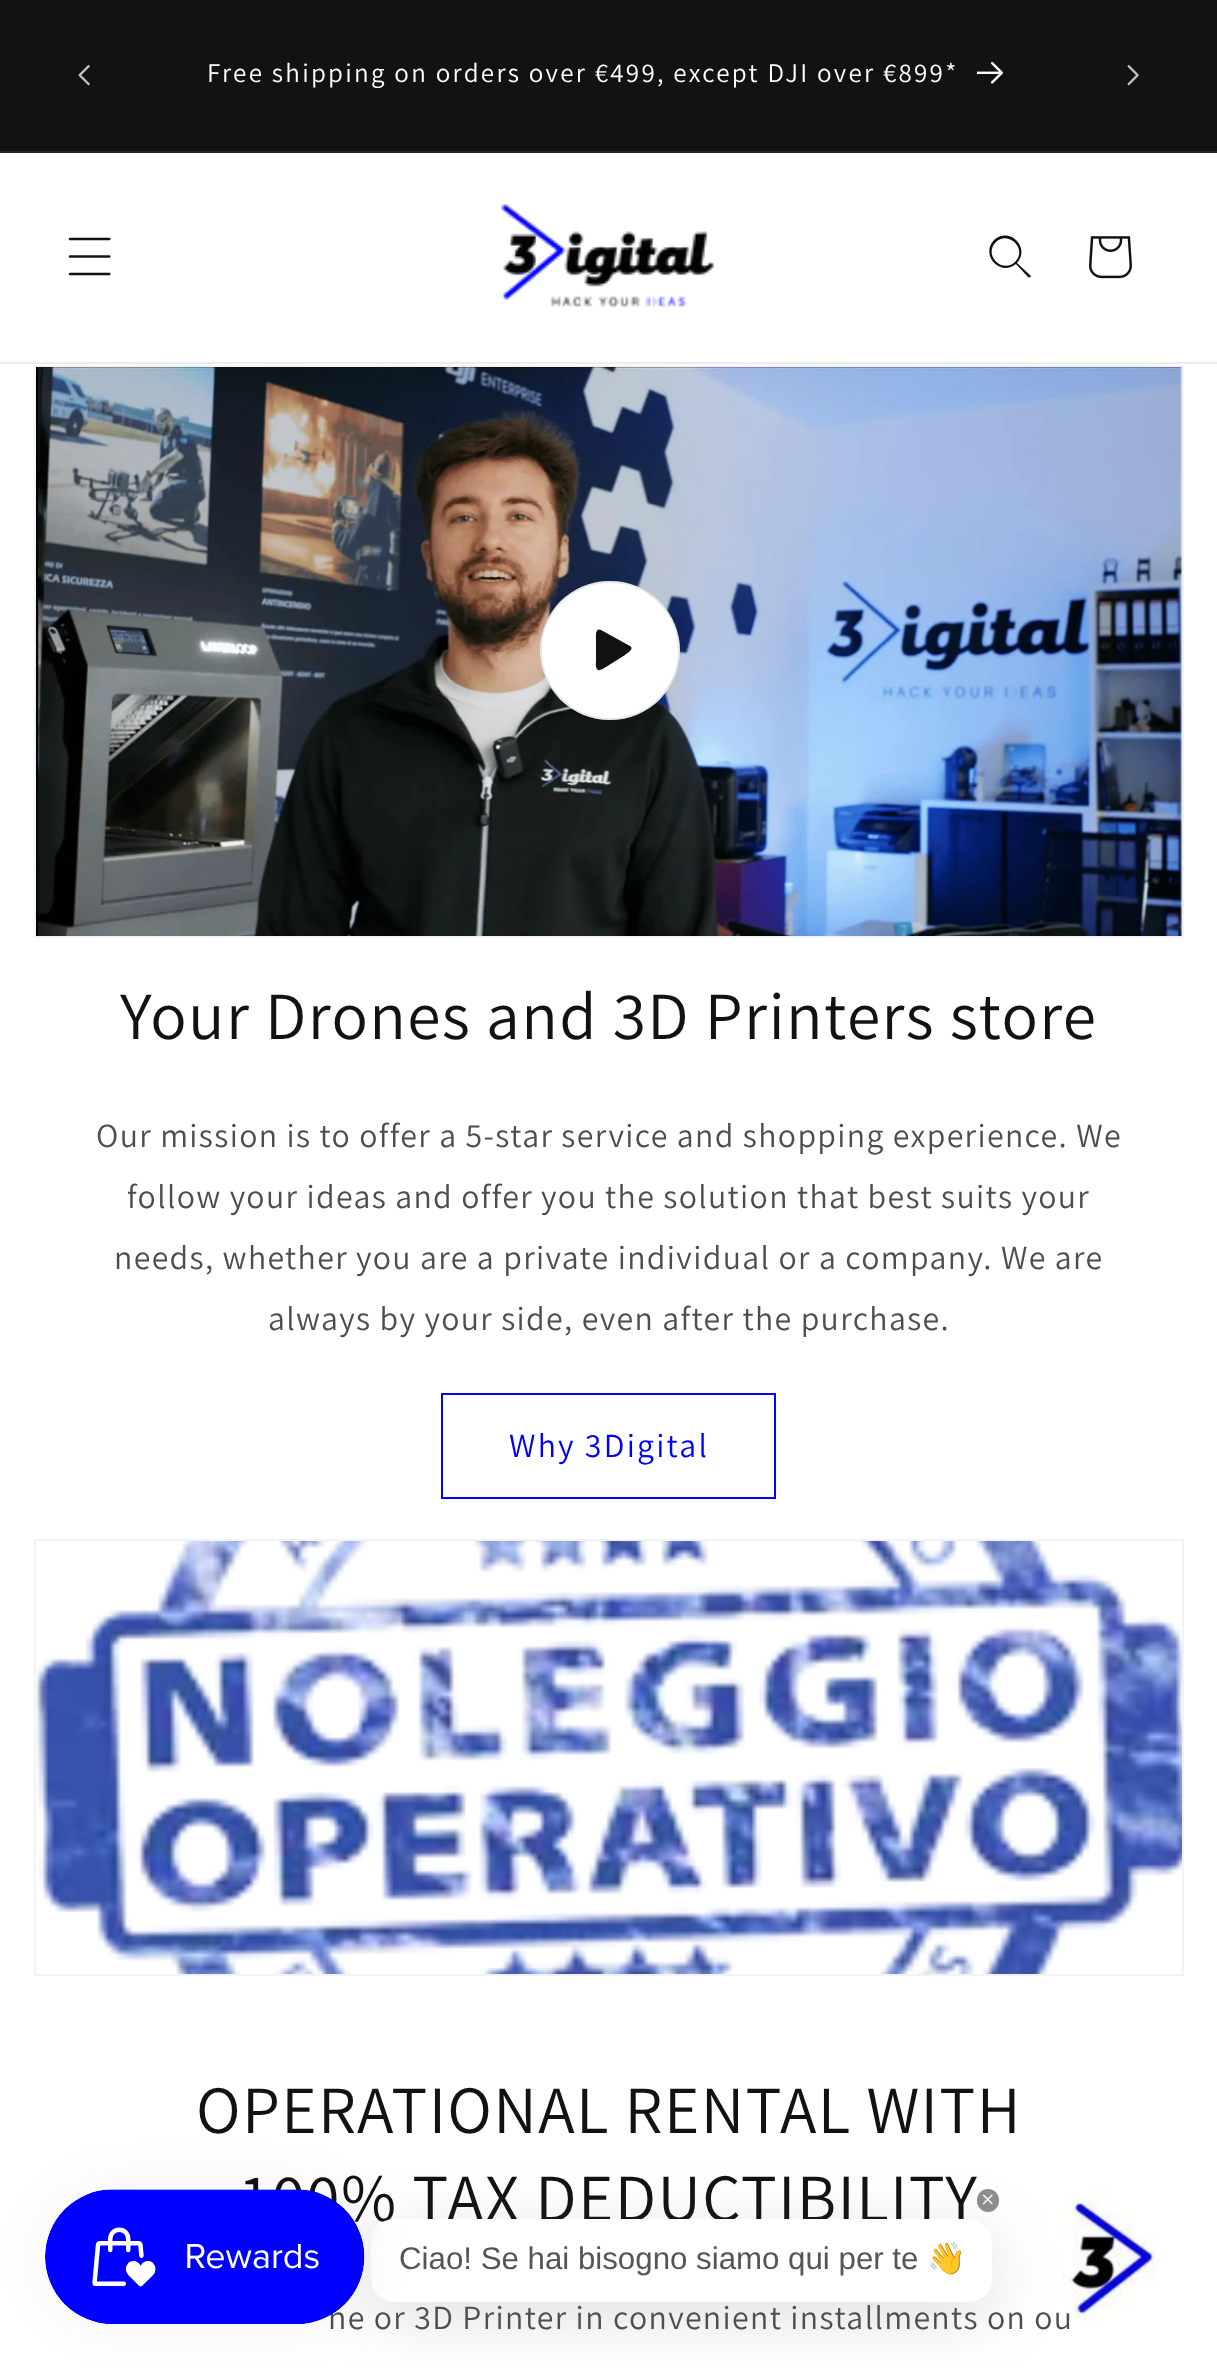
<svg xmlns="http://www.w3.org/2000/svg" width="1217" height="2368">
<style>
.a{font:27px Assistant;letter-spacing:2.25px;fill:#fff}
.b{font:67.5px Assistant;letter-spacing:1.35px;fill:#121212}
.c{font:33.75px Assistant;letter-spacing:1.35px;fill:#4d4d4d}
.d{font:33.75px Assistant;letter-spacing:2.25px;fill:#00f}
.e{font:31.25px Noto Color Emoji;fill:#555}
.f{font:31.25px Liberation Sans;fill:#555}
</style>
<rect width="100%" height="100%" fill="#fff"/>
<path fill="#121212" d="M0 0h1217v151H0z"/>
<path fill="#252525" d="M0 151h1217v2H0z"/>
<image href="1.png" x="78" y="65" width="12" height="21"/>
<image href="2.png" x="977" y="62" width="26" height="22"/>
<image href="3.png" x="1127" y="65" width="12" height="21"/>
<path fill="#ececec" d="M0 362h1217v2H0z"/>
<image href="4.png" x="68" y="237" width="43" height="39"/>
<image href="5.png" x="501" y="204" width="213" height="104"/>
<path fill="#121212" fill-rule="evenodd" d="M1015 262c-13 12-32-7-19-20c12-12 32 7 19 20m1 2c-16 13-36-9-22-24c15-14 37 7 23 23l14 13c0 1-2 2-3 1z"/>
<image href="6.png" x="1089" y="236" width="43" height="43"/>
<path fill="none" stroke="#f3f3f3" stroke-width="2" d="M35 366h1148v571H35z"/>
<image href="7.png" x="36" y="367" width="1146" height="569"/>
<rect fill="#fff" x="540" y="581" width="140" height="139" rx="69.5"/>
<rect fill="none" stroke="#1212121a" stroke-width="2" x="541" y="582" width="138" height="137" rx="68.5"/>
<path fill="#121212" fill-rule="evenodd" d="M601 630c-6-3-5 7-5 9v22c0 2-1 7 2 9c2 1 6-2 8-3l19-12c1-1 10-6 5-9z"/>
<path fill="none" stroke="#00f" stroke-width="2" d="M442 1394h333v104H442z"/>
<path fill="none" stroke="#f3f3f3" stroke-width="2" d="M35 1540h1148v435H35z"/>
<image href="8.png" x="36" y="1541" width="1146" height="433"/>
<text class="a" x="207" y="82">Free shipping on orders over €499, except DJI over €899*</text>
<text class="b" x="120" y="1039">Your Drones and 3D Printers store</text>
<text class="c" x="96" y="1147">Our mission is to offer a 5-star service and shopping experience. We</text>
<text class="c" x="127" y="1208">follow your ideas and offer you the solution that best suits your</text>
<text class="c" x="114" y="1269">needs, whether you are a private individual or a company. We are</text>
<text class="c" x="268" y="1330">always by your side, even after the purchase.</text>
<text class="d" x="509" y="1457">Why 3Digital</text>
<text class="b" x="196" y="2133">OPERATIONAL RENTAL WITH</text>
<text class="b" x="240" y="2221">100% TAX DEDUCTIBILITY</text>
<text class="c" x="328" y="2329">ne or 3D Printer in convenient installments on ou</text>
<image href="11.png" x="1060" y="2189" width="99" height="133"/>
<rect fill="#64646f33" filter="blur(32.5px)" x="371" y="2234" width="621" height="84" rx="23"/>
<rect fill="#fff" x="371" y="2219" width="621" height="83" rx="23"/>
<rect fill="#0000000d" filter="blur(28px)" x="45" y="2189" width="320" height="135" rx="67.5"/>
<image href="9.png" x="45" y="2189" width="320" height="135"/>
<rect fill="#3030308c" x="977" y="2189" width="22" height="23" rx="11"/>
<image href="10.png" x="982" y="2194" width="11" height="11"/>
<text class="e" x="927" y="2269">👋</text>
<text class="f" x="399" y="2269">Ciao! Se hai bisogno siamo qui per te</text>
</svg>
